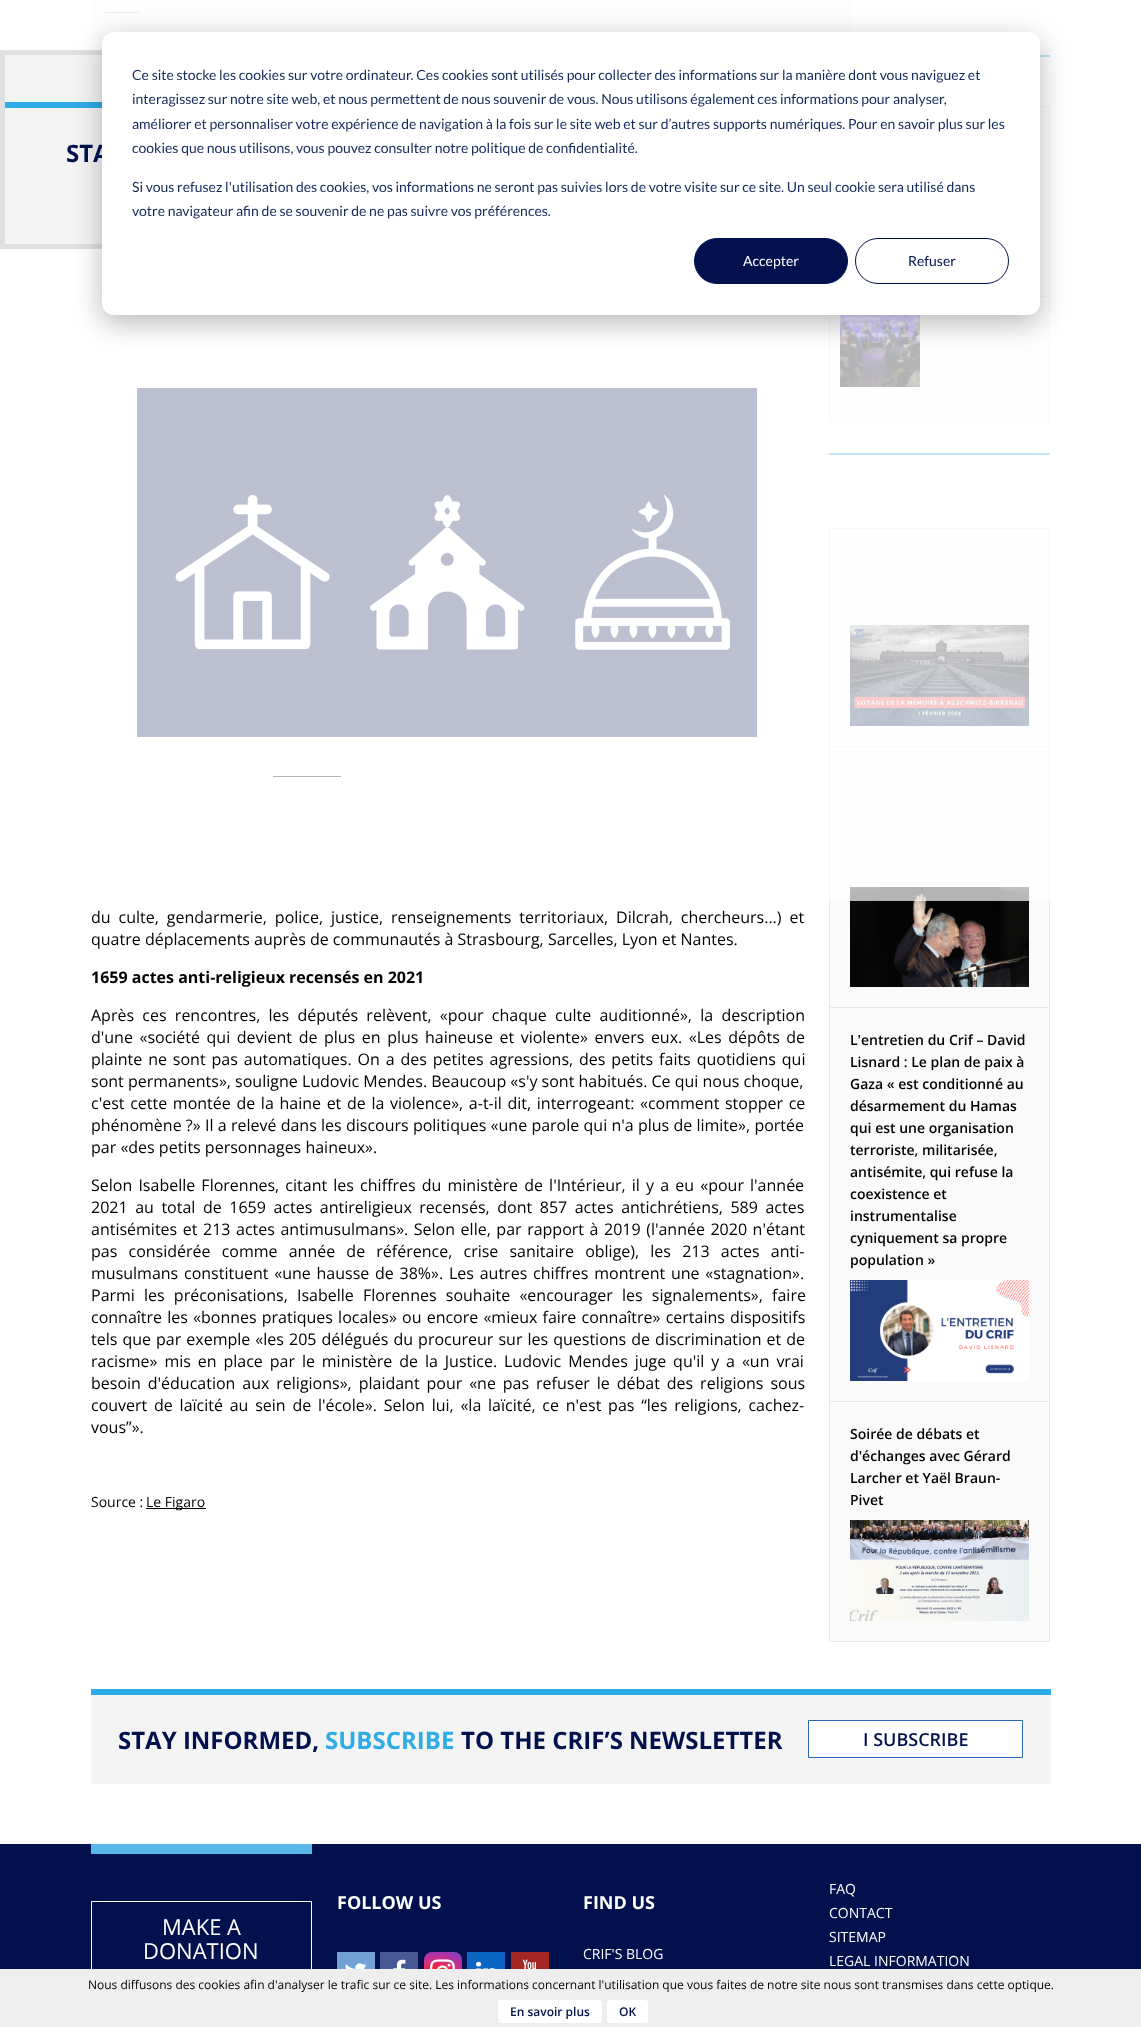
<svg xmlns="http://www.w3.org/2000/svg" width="1141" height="2027">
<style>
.a{font:bold 24px Open Sans;fill:#02104d}
.b{font:14px Lato;fill:#02104d}
.c{font:14px Lato;fill:#fff}
.d{font:14px Lato;fill:#15295a}
.e{font:16px Open Sans;fill:#000}
.f{font:bold 16px Open Sans;fill:#000}
.g{font:14px Open Sans;fill:#000}
.h{font:600 14px Open Sans;fill:#000}
.i{font:bold 24px Open Sans;fill:#2dace8}
.j{font:600 18px Open Sans;fill:#02104d}
.k{font:22px Open Sans;fill:#fff}
.l{font:bold 18px Open Sans;fill:#fff}
.m{font:14px Open Sans;fill:#fff}
.n{font:12px Open Sans;fill:#000}
.o{font:600 12px Open Sans;fill:#02104d}
</style>
<defs>
<radialGradient id="g1" gradientUnits="userSpaceOnUse" cx="437" cy="1990" r="46"><stop offset="0.04" stop-color="#ffdc80"/><stop offset="0.12" stop-color="#fcaf45"/><stop offset="0.2" stop-color="#f77737"/><stop offset="0.3" stop-color="#f56040"/><stop offset="0.45" stop-color="#fd1d1d"/><stop offset="0.62" stop-color="#d92e7f"/><stop offset="0.85" stop-color="#9b36b7"/><stop offset="1" stop-color="#515ecf"/></radialGradient>
</defs>
<rect width="100%" height="100%" fill="#fff"/>
<path fill="#f7f7f7" d="M91 0h762v41H91z"/>
<path fill="#c2c3c4" d="M105 12h35v1H105z"/>
<image href="1.png" x="137" y="388" width="620" height="349"/>
<path fill="#000" d="M273 776h68v1H273z"/>
<path fill="#2dace8" d="M1040 55h10v2H1040z"/>
<path fill="#fafafa" d="M830 107h219v315H830z"/>
<path fill="#e8e8e8" d="M1040 106h10v1H1040z"/>
<path fill="#e8e8e8" d="M1049 106h1v317H1049z"/>
<path fill="#e8e8e8" d="M829 315h1v108H829z"/>
<path fill="#e8e8e8" d="M1040 296h9v1H1040z"/>
<path fill="#e8e8e8" d="M830 422h219v1H830z"/>
<image href="2.png" x="840" y="315" width="80" height="72"/>
<path fill="#2dace8" d="M829 453h221v2H829z"/>
<path fill="#fafafa" d="M830 529h219v1112H830z"/>
<path fill="#e8e8e8" d="M829 528h221v1H829z"/>
<path fill="#e8e8e8" d="M1049 528h1v1114H1049z"/>
<path fill="#e8e8e8" d="M829 528h1v1114H829z"/>
<path fill="#e8e8e8" d="M830 746h219v1H830z"/>
<image href="3.png" x="850" y="625" width="179" height="101"/>
<image href="4.png" x="850" y="887" width="179" height="100"/>
<path fill="#ffffffb3" d="M91 0h959v901H91z"/>
<path fill="#f4f4f4" d="M5 55h97v189H5z"/>
<path fill="none" stroke="#dee0e2" stroke-width="5" d="M2.5 52.5h1033v194H2.5z"/>
<path fill="#2dace8" d="M5 102h97v6H5z"/>
<rect fill="#00000047" filter="blur(14px)" x="102" y="40" width="938" height="283" rx="12"/>
<path fill="#000" d="M146 1508h60v1H146z"/>
<path fill="#e8e8e8" d="M830 1007h219v1H830z"/>
<path fill="#e8e8e8" d="M830 1401h219v1H830z"/>
<image href="5.png" x="850" y="1280" width="179" height="101"/>
<path fill="#e8e8e8" d="M830 1641h219v1H830z"/>
<image href="6.png" x="850" y="1520" width="179" height="101"/>
<path fill="#f4f4f4" d="M91 1695h960v89H91z"/>
<path fill="#2dace8" d="M91 1689h960v6H91z"/>
<path fill="#fff" stroke="#2868b5" d="M808.5 1720.5h214v37H808.5z"/>
<path fill="#02104d" d="M0 1844h1141v125H0z"/>
<path fill="#59b8eb" d="M91 1844h221v10H91z"/>
<path fill="none" stroke="#fff" d="M91.5 1901.5h220v73H91.5z"/>
<path fill="#72a1d6" d="M337 1952h38v17H337z"/>
<image href="7.png" x="345" y="1963" width="22" height="6"/>
<path fill="#465994" d="M380 1952h38v17H380z"/>
<image href="8.png" x="393" y="1959" width="13" height="10"/>
<rect fill="url(#g1)" x="424" y="1952" width="38" height="38" rx="8"/>
<image href="9.png" x="430" y="1959" width="25" height="10"/>
<path fill="#0a66c2" d="M467 1952h38v17H467z"/>
<image href="10.png" x="476" y="1961" width="19" height="8"/>
<path fill="#a32624" d="M511 1952h38v17H511z"/>
<image href="11.png" x="522" y="1959" width="14" height="10"/>
<path fill="#eee" d="M0 1969h1141v58H0z"/>
<rect fill="#fff" x="498" y="2000" width="104" height="23" rx="3"/>
<rect fill="#fff" x="607" y="2000" width="41" height="23" rx="3"/>
<text class="a" x="66" y="162">STA</text>
<rect fill="#fff" x="102" y="32" width="938" height="283" rx="12"/>
<rect fill="none" stroke="#02104d" x="855.5" y="238.5" width="153" height="45" rx="22.5"/>
<text class="b" x="908" y="266">Refuser</text>
<rect fill="#02104d" stroke="#02104d" x="694.5" y="238.5" width="153" height="45" rx="22.5"/>
<text class="c" x="743" y="266">Accepter</text>
<text class="d" x="132" y="216">votre navigateur afin de se souvenir de ne pas suivre vos préférences.</text>
<text class="d" x="132" y="192">Si vous refusez l'utilisation des cookies, vos informations ne seront pas suivies lors de votre visite sur ce site. Un seul cookie sera utilisé dans</text>
<text class="d" x="132" y="153">cookies que nous utilisons, vous pouvez consulter notre politique de confidentialité.</text>
<text class="d" x="132" y="129">améliorer et personnaliser votre expérience de navigation à la fois sur le site web et sur d’autres supports numériques. Pour en savoir plus sur les</text>
<text class="d" x="132" y="104">interagissez sur notre site web, et nous permettent de nous souvenir de vous. Nous utilisons également ces informations pour analyser,</text>
<text class="d" x="132" y="80">Ce site stocke les cookies sur votre ordinateur. Ces cookies sont utilisés pour collecter des informations sur la manière dont vous naviguez et</text>
<text class="e" x="91" y="923" word-spacing="3.75">du culte, gendarmerie, police, justice, renseignements territoriaux, Dilcrah, chercheurs...) et</text>
<text class="e" x="91" y="945">quatre déplacements auprès de communautés à Strasbourg, Sarcelles, Lyon et Nantes.</text>
<text class="f" x="91" y="983">1659 actes anti-religieux recensés en 2021</text>
<text class="e" x="91" y="1021" word-spacing="4.1">Après ces rencontres, les députés relèvent, «pour chaque culte auditionné», la description</text>
<text class="e" x="91" y="1043" word-spacing="2.4">d'une «société qui devient de plus en plus haineuse et violente» envers eux. «Les dépôts de</text>
<text class="e" x="91" y="1065" word-spacing="1.75">plainte ne sont pas automatiques. On a des petites agressions, des petits faits quotidiens qui</text>
<text class="e" x="91" y="1087">sont permanents», souligne Ludovic Mendes. Beaucoup «s'y sont habitués. Ce qui nous choque,</text>
<text class="e" x="91" y="1109" word-spacing="1.5">c'est cette montée de la haine et de la violence», a-t-il dit, interrogeant: «comment stopper ce</text>
<text class="e" x="91" y="1131" word-spacing="0.1">phénomène ?» Il a relevé dans les discours politiques «une parole qui n'a plus de limite», portée</text>
<text class="e" x="91" y="1153">par «des petits personnages haineux».</text>
<text class="e" x="91" y="1191" word-spacing="2">Selon Isabelle Florennes, citant les chiffres du ministère de l'Intérieur, il y a eu «pour l'année</text>
<text class="e" x="91" y="1213" word-spacing="3.4">2021 au total de 1659 actes antireligieux recensés, dont 857 actes antichrétiens, 589 actes</text>
<text class="e" x="91" y="1235" word-spacing="1.4">antisémites et 213 actes antimusulmans». Selon elle, par rapport à 2019 (l'année 2020 n'étant</text>
<text class="e" x="91" y="1257" word-spacing="7">pas considérée comme année de référence, crise sanitaire oblige), les 213 actes anti-</text>
<text class="e" x="91" y="1279" word-spacing="1.6">musulmans constituent «une hausse de 38%». Les autres chiffres montrent une «stagnation».</text>
<text class="e" x="91" y="1301" word-spacing="5">Parmi les préconisations, Isabelle Florennes souhaite «encourager les signalements», faire</text>
<text class="e" x="91" y="1323" word-spacing="1">connaître les «bonnes pratiques locales» ou encore «mieux faire connaître» certains dispositifs</text>
<text class="e" x="91" y="1345" word-spacing="0.9">tels que par exemple «les 205 délégués du procureur sur les questions de discrimination et de</text>
<text class="e" x="91" y="1367" word-spacing="2.75">racisme» mis en place par le ministère de la Justice. Ludovic Mendes juge qu'il y a «un vrai</text>
<text class="e" x="91" y="1389" word-spacing="2.75">besoin d'éducation aux religions», plaidant pour «ne pas refuser le débat des religions sous</text>
<text class="e" x="91" y="1411" word-spacing="2.6">couvert de laïcité au sein de l'école». Selon lui, «la laïcité, ce n'est pas “les religions, cachez-</text>
<text class="e" x="91" y="1433">vous”».</text>
<text class="g" x="91" y="1507">Source :</text>
<text class="g" x="146" y="1507">Le Figaro</text>
<text class="h" x="850" y="1045">L'entretien du Crif – David</text>
<text class="h" x="850" y="1067">Lisnard : Le plan de paix à</text>
<text class="h" x="850" y="1089">Gaza « est conditionné au</text>
<text class="h" x="850" y="1111">désarmement du Hamas</text>
<text class="h" x="850" y="1133">qui est une organisation</text>
<text class="h" x="850" y="1155">terroriste, militarisée,</text>
<text class="h" x="850" y="1177">antisémite, qui refuse la</text>
<text class="h" x="850" y="1199">coexistence et</text>
<text class="h" x="850" y="1221">instrumentalise</text>
<text class="h" x="850" y="1243">cyniquement sa propre</text>
<text class="h" x="850" y="1265">population »</text>
<text class="h" x="850" y="1439">Soirée de débats et</text>
<text class="h" x="850" y="1461">d'échanges avec Gérard</text>
<text class="h" x="850" y="1483">Larcher et Yaël Braun-</text>
<text class="h" x="850" y="1505">Pivet</text>
<text class="a" x="118" y="1749">STAY INFORMED,</text>
<text class="i" x="325" y="1749">SUBSCRIBE</text>
<text class="a" x="461" y="1749">TO THE CRIF’S NEWSLETTER</text>
<text class="j" x="863" y="1746">I SUBSCRIBE</text>
<text class="k" x="162" y="1935">MAKE A</text>
<text class="k" x="143" y="1959">DONATION</text>
<text class="l" x="337" y="1909">FOLLOW US</text>
<text class="l" x="583" y="1909">FIND US</text>
<text class="m" x="583" y="1959">CRIF'S BLOG</text>
<text class="m" x="829" y="1894">FAQ</text>
<text class="m" x="829" y="1918">CONTACT</text>
<text class="m" x="829" y="1942">SITEMAP</text>
<text class="m" x="829" y="1966">LEGAL INFORMATION</text>
<text class="n" x="88" y="1989">Nous diffusons des cookies afin d'analyser le trafic sur ce site. Les informations concernant l'utilisation que vous faites de notre site nous sont transmises dans cette optique.</text>
<text class="o" x="510" y="2016">En savoir plus</text>
<text class="o" x="619" y="2016">OK</text>
</svg>
